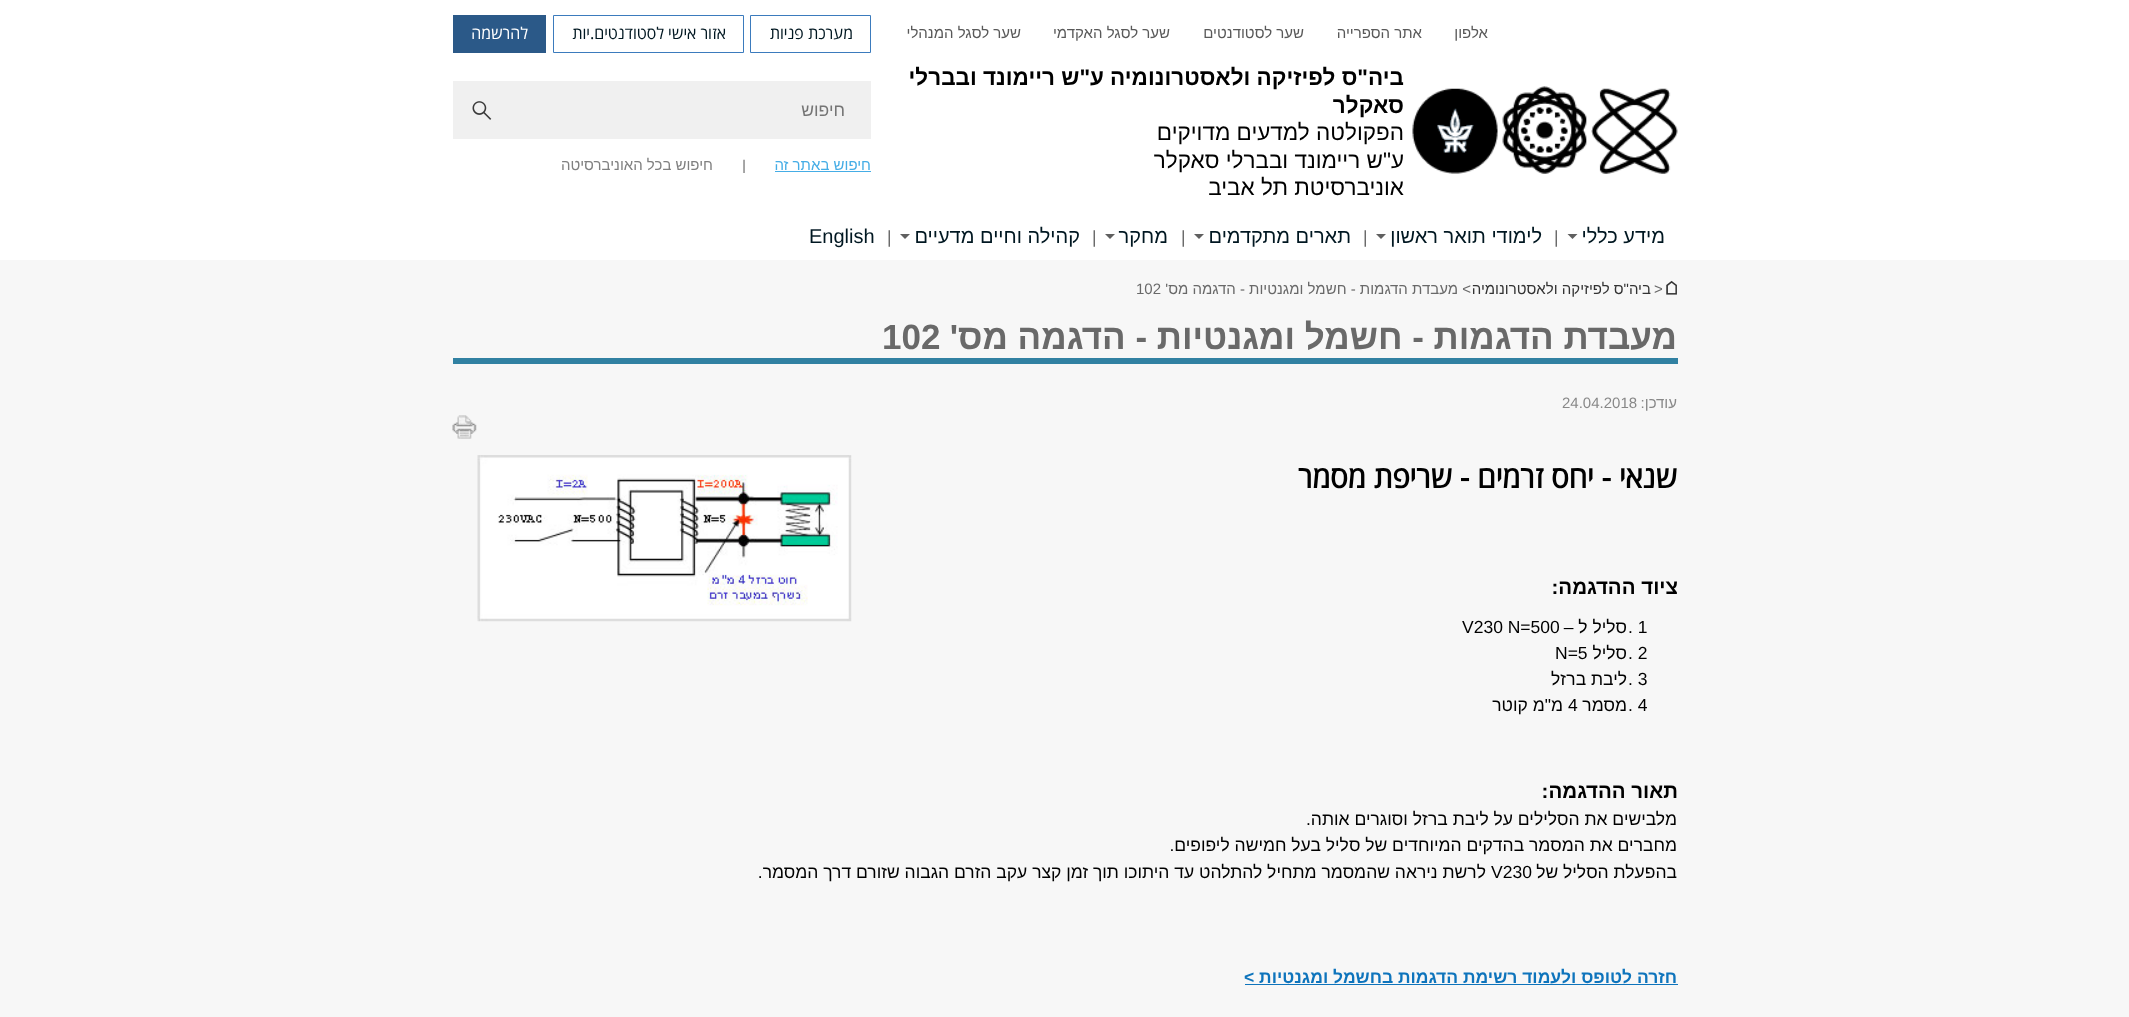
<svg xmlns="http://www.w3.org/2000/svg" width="2129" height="1017">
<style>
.a{font:15px Liberation Sans;direction:rtl;fill:#595959}
.b{font:16.25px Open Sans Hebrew;direction:rtl;fill:#001721}
.c{font:16.25px Open Sans Hebrew;direction:rtl;fill:#fff}
.d{font:bold 22.5px Liberation Sans;direction:rtl;fill:#000}
.e{font:22.5px Liberation Sans;direction:rtl;fill:#000}
.f{font:17.5px Liberation Sans;direction:rtl;fill:#757575}
.g{font:15px Liberation Sans;direction:rtl;fill:#45ade6}
.h{font:italic 14px Liberation Sans;fill:#696969}
.i{font:15px Liberation Sans;direction:rtl;fill:#808080}
.j{font:20px Liberation Sans;direction:rtl;fill:#001721}
.k{font:17.5px Liberation Sans;fill:#696969}
.l{font:20px Liberation Sans;fill:#001721}
.m{font:15px Liberation Sans;fill:#696969}
.n{font:15px Liberation Sans;direction:rtl;fill:#333}
.o{font:15px Liberation Sans;direction:rtl;fill:#696969}
.p{font:bold 35px Liberation Sans;direction:rtl;fill:#696969}
.q{font:bold 35px Liberation Sans;fill:#696969}
.r{font:15px Liberation Sans;direction:rtl;fill:#888}
.s{font:15px Liberation Sans;fill:#888}
.t{font:bold 30px Open Sans Hebrew;direction:rtl;fill:#000}
.u{font:bold 20.5px Liberation Sans;direction:rtl;fill:#000}
.v{font:17.5px Liberation Sans;fill:#000}
.w{font:17.5px Liberation Sans;direction:rtl;fill:#000}
.x{font:bold 17.5px Liberation Sans;direction:rtl;fill:#0e74bc}
</style>
<rect width="100%" height="100%" fill="#f7f7f7"/>
<path fill="#fff" d="M0 0h2129v260H0z"/>
<path fill="none" stroke="#3b7bbd" d="M750.5 15.5h120v37H750.5z"/>
<path fill="none" stroke="#3b7bbd" d="M553.5 15.5h190v37H553.5z"/>
<path fill="#2b5988" d="M453 15h93v38H453z"/>
<image href="1.png" x="1412" y="86" width="266" height="88"/>
<path fill="#f0f0f0" d="M453 81h418v58H453z"/>
<image href="2.png" x="472" y="101" width="20" height="19"/>
<path fill="#45ade6" d="M775 171h96v1H775z"/>
<path fill="#606060" d="M1567.5 234h10l-5 5z"/>
<path fill="#606060" d="M1376 234h10l-5 5z"/>
<path fill="#606060" d="M1194 234h10l-5 5z"/>
<path fill="#606060" d="M1105 234h10l-5 5z"/>
<path fill="#606060" d="M900 234h10l-5 5z"/>
<image href="3.png" x="1666" y="280" width="11" height="15"/>
<path fill="#3181a2" d="M453 358h1225v6H453z"/>
<image href="4.png" x="452" y="415" width="25" height="24"/>
<image href="5.png" x="477" y="455" width="375" height="167"/>
<path fill="#0e74bc" d="M1245 984h433v1H1245z"/>
<text class="a" x="1488" y="38">אלפון</text>
<text class="a" x="1422" y="38">אתר הספרייה</text>
<text class="a" x="1304" y="38">שער לסטודנטים</text>
<text class="a" x="1170" y="38">שער לסגל האקדמי</text>
<text class="a" x="1021" y="38">שער לסגל המנהלי</text>
<text class="b" x="853" y="39">מערכת פניות</text>
<text class="b" x="726" y="39">אזור אישי לסטודנטים.יות</text>
<text class="c" x="528" y="39">להרשמה</text>
<text class="d" x="1404" y="85">ביה"ס לפיזיקה ולאסטרונומיה</text>
<text class="d" x="1104" y="85">ע"ש ריימונד ובברלי</text>
<text class="d" x="1404" y="113">סאקלר</text>
<text class="e" x="1404" y="140">הפקולטה למדעים מדויקים</text>
<text class="e" x="1404" y="168">ע"ש ריימונד ובברלי סאקלר</text>
<text class="e" x="1404" y="195">אוניברסיטת תל אביב</text>
<text class="f" x="845" y="116">חיפוש</text>
<text class="g" x="871" y="170">חיפוש באתר זה</text>
<text class="h" x="742" y="170">|</text>
<text class="i" x="713" y="170">חיפוש בכל האוניברסיטה</text>
<text class="j" x="1665" y="243">מידע כללי</text>
<text class="k" x="1554" y="243">|</text>
<text class="j" x="1542" y="243">לימודי תואר ראשון</text>
<text class="k" x="1363" y="243">|</text>
<text class="j" x="1351" y="243">תארים מתקדמים</text>
<text class="k" x="1181" y="243">|</text>
<text class="j" x="1168" y="243">מחקר</text>
<text class="k" x="1092" y="243">|</text>
<text class="j" x="1080" y="243">קהילה וחיים מדעיים</text>
<text class="k" x="887" y="243">|</text>
<text class="l" x="809" y="243">English</text>
<text class="m" x="1654" y="294">&gt;</text>
<text class="n" x="1651" y="294">ביה"ס לפיזיקה ולאסטרונומיה</text>
<text class="o" x="1471" y="294">&gt; מעבדת הדגמות - חשמל ומגנטיות - הדגמה מס'</text>
<text class="m" x="1136" y="294">102</text>
<text class="p" x="1677" y="349">מעבדת הדגמות - חשמל ומגנטיות - הדגמה מס'</text>
<text class="q" x="882" y="349">102</text>
<text class="r" x="1677" y="408">עודכן:</text>
<text class="s" x="1562" y="408">24.04.2018</text>
<text class="t" x="1677" y="488">שנאי - יחס זרמים - שריפת מסמר</text>
<text class="u" x="1678" y="594">ציוד ההדגמה:</text>
<text class="v" x="1628" y="633">. 1</text>
<text class="w" x="1627" y="633">סליל ל –</text>
<text class="v" x="1462" y="633">V230 N=500</text>
<text class="v" x="1628" y="659">. 2</text>
<text class="w" x="1627" y="659">סליל</text>
<text class="v" x="1555" y="659">N=5</text>
<text class="v" x="1628" y="685">. 3</text>
<text class="w" x="1627" y="685">ליבת ברזל</text>
<text class="v" x="1628" y="711">. 4</text>
<text class="w" x="1627" y="711">מסמר</text>
<text class="v" x="1568" y="711">4</text>
<text class="w" x="1563" y="711">מ"מ קוטר</text>
<text class="u" x="1678" y="798">תאור ההדגמה:</text>
<text class="w" x="1677" y="825">מלבישים את הסלילים על ליבת ברזל וסוגרים אותה.</text>
<text class="w" x="1677" y="851">מחברים את המסמר בהדקים המיוחדים של סליל בעל חמישה ליפופים.</text>
<text class="w" x="1677" y="878">בהפעלת הסליל של</text>
<text class="v" x="1491" y="878">V230</text>
<text class="w" x="1486" y="878">לרשת ניראה שהמסמר מתחיל להתלהט עד היתוכו תוך זמן קצר עקב הזרם הגבוה שזורם דרך המסמר.</text>
<text class="x" x="1677" y="983">חזרה לטופס ולעמוד רשימת הדגמות בחשמל ומגנטיות &gt;</text>
</svg>
